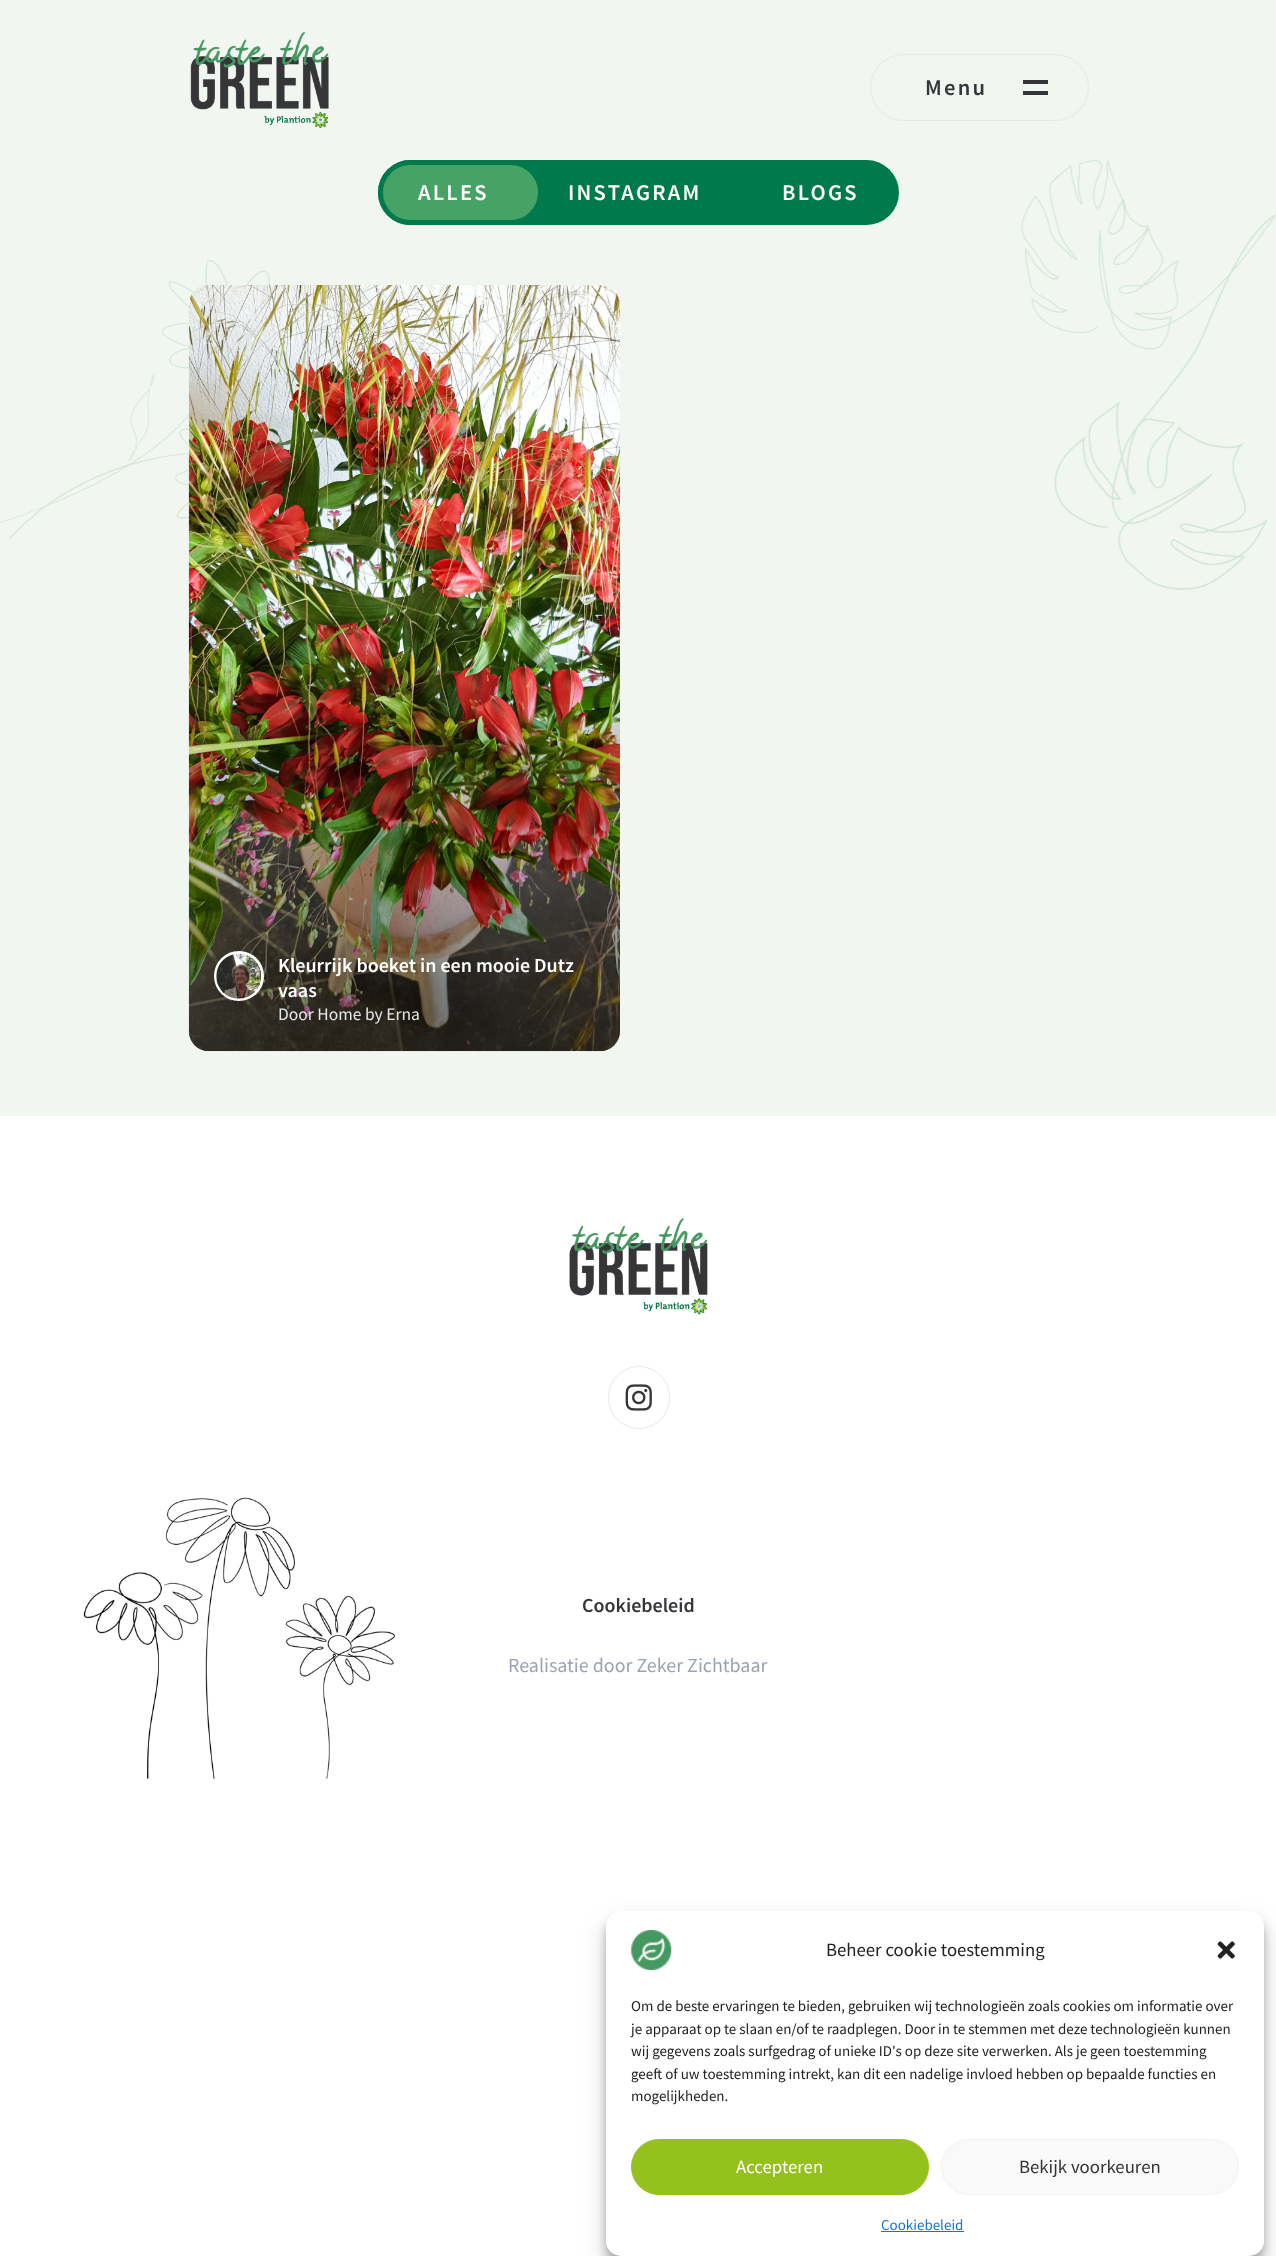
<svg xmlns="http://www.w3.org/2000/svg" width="1276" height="2256">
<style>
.a{font:600 22.5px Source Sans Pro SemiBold;letter-spacing:2.25px;fill:#36353a}
.b{font:600 22.5px Source Sans Pro SemiBold;letter-spacing:2.25px;fill:#fff}
.c{font:600 20px Source Sans Pro SemiBold;fill:#fff}
.d{font:17.5px Source Sans Pro;fill:#e5e7eb}
.e{font:600 20px Source Sans Pro SemiBold;fill:#36353a}
.f{font:20px Source Sans Pro;fill:#9ca3af}
.g{font:18.75px Source Sans Pro;fill:#222}
.h{font:15px Source Sans Pro;fill:#222}
.i{font:18.75px Source Sans Pro;fill:#fff}
.j{font:18.75px Source Sans Pro;fill:#333}
.k{font:15px Source Sans Pro;fill:#1e73be}
</style>
<defs>
<linearGradient id="g1" gradientUnits="userSpaceOnUse" x1="404" y1="1051" x2="404" y2="285"><stop offset="0" stop-color="#000" stop-opacity="0.5"/><stop offset="0.5" stop-color="#000" stop-opacity="0"/><stop offset="1" stop-color="#000" stop-opacity="0"/></linearGradient>
</defs>
<rect width="100%" height="100%" fill="#fff"/>
<path fill="#f2f6f1" d="M0 0h1276v1116H0z"/>
<image href="1.png" x="190" y="32" width="139" height="97"/>
<rect fill="none" stroke="#e5e7eb" x="870.5" y="54.5" width="218" height="66" rx="33"/>
<path fill="#36353a" d="M1023 80h25v4H1023z"/>
<path fill="#36353a" d="M1023 91h25v4H1023z"/>
<image href="2.png" x="0" y="160" width="1276" height="430"/>
<rect fill="#007a4c" x="378" y="160" width="521" height="65" rx="32.5"/>
<rect fill="#47a365" stroke="#007a4c" stroke-width="5" x="380.5" y="162.5" width="160" height="60" rx="30"/>
<image href="3.png" x="188" y="285" width="432" height="767"/>
<rect fill="url(#g1)" x="189" y="285" width="431" height="766" rx="20"/>
<circle fill="none" stroke="#fff" stroke-width="3" cx="239" cy="976" r="23.5"/>
<image href="4.png" x="216" y="953" width="46" height="46"/>
<image href="5.png" x="83" y="1497" width="312" height="282"/>
<image href="6.png" x="569" y="1218" width="139" height="97"/>
<rect fill="none" stroke="#e5e7eb" x="608.5" y="1366.5" width="61" height="62" rx="30.5"/>
<image href="7.png" x="625" y="1384" width="27" height="27"/>
<rect fill="#0000003b" filter="blur(4px)" x="606" y="1919" width="658" height="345" rx="15"/>
<rect fill="#00000030" filter="blur(12.5px)" x="606" y="1924" width="658" height="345" rx="15"/>
<rect fill="#fff" x="606" y="1911" width="658" height="345" rx="15"/>
<image href="8.png" x="631" y="1930" width="41" height="40"/>
<image href="9.png" x="1217" y="1941" width="18" height="18"/>
<rect fill="#94c11e" stroke="#94c11e" x="631.5" y="2139.5" width="297" height="55" rx="27.5"/>
<rect fill="#f9f9f9" stroke="#f2f2f2" x="941.5" y="2139.5" width="297" height="55" rx="27.5"/>
<path fill="#1e73be" d="M881 2231h83v1H881z"/>
<text class="a" x="925" y="95">Menu</text>
<text class="b" x="418" y="200">ALLES</text>
<text class="b" x="568" y="200">INSTAGRAM</text>
<text class="b" x="782" y="200">BLOGS</text>
<text class="c" x="278" y="972">Kleurrijk boeket in een mooie Dutz</text>
<text class="c" x="278" y="997">vaas</text>
<text class="d" x="278" y="1020">Door Home by Erna</text>
<text class="e" x="582" y="1612">Cookiebeleid</text>
<text class="f" x="508" y="1672">Realisatie door Zeker Zichtbaar</text>
<text class="g" x="826" y="1956">Beheer cookie toestemming</text>
<text class="h" x="631" y="2011">Om de beste ervaringen te bieden, gebruiken wij technologieën zoals cookies om informatie over</text>
<text class="h" x="631" y="2034">je apparaat op te slaan en/of te raadplegen. Door in te stemmen met deze technologieën kunnen</text>
<text class="h" x="631" y="2056">wij gegevens zoals surfgedrag of unieke ID's op deze site verwerken. Als je geen toestemming</text>
<text class="h" x="631" y="2079">geeft of uw toestemming intrekt, kan dit een nadelige invloed hebben op bepaalde functies en</text>
<text class="h" x="631" y="2101">mogelijkheden.</text>
<text class="i" x="736" y="2173">Accepteren</text>
<text class="j" x="1019" y="2173">Bekijk voorkeuren</text>
<text class="k" x="881" y="2230">Cookiebeleid</text>
</svg>
